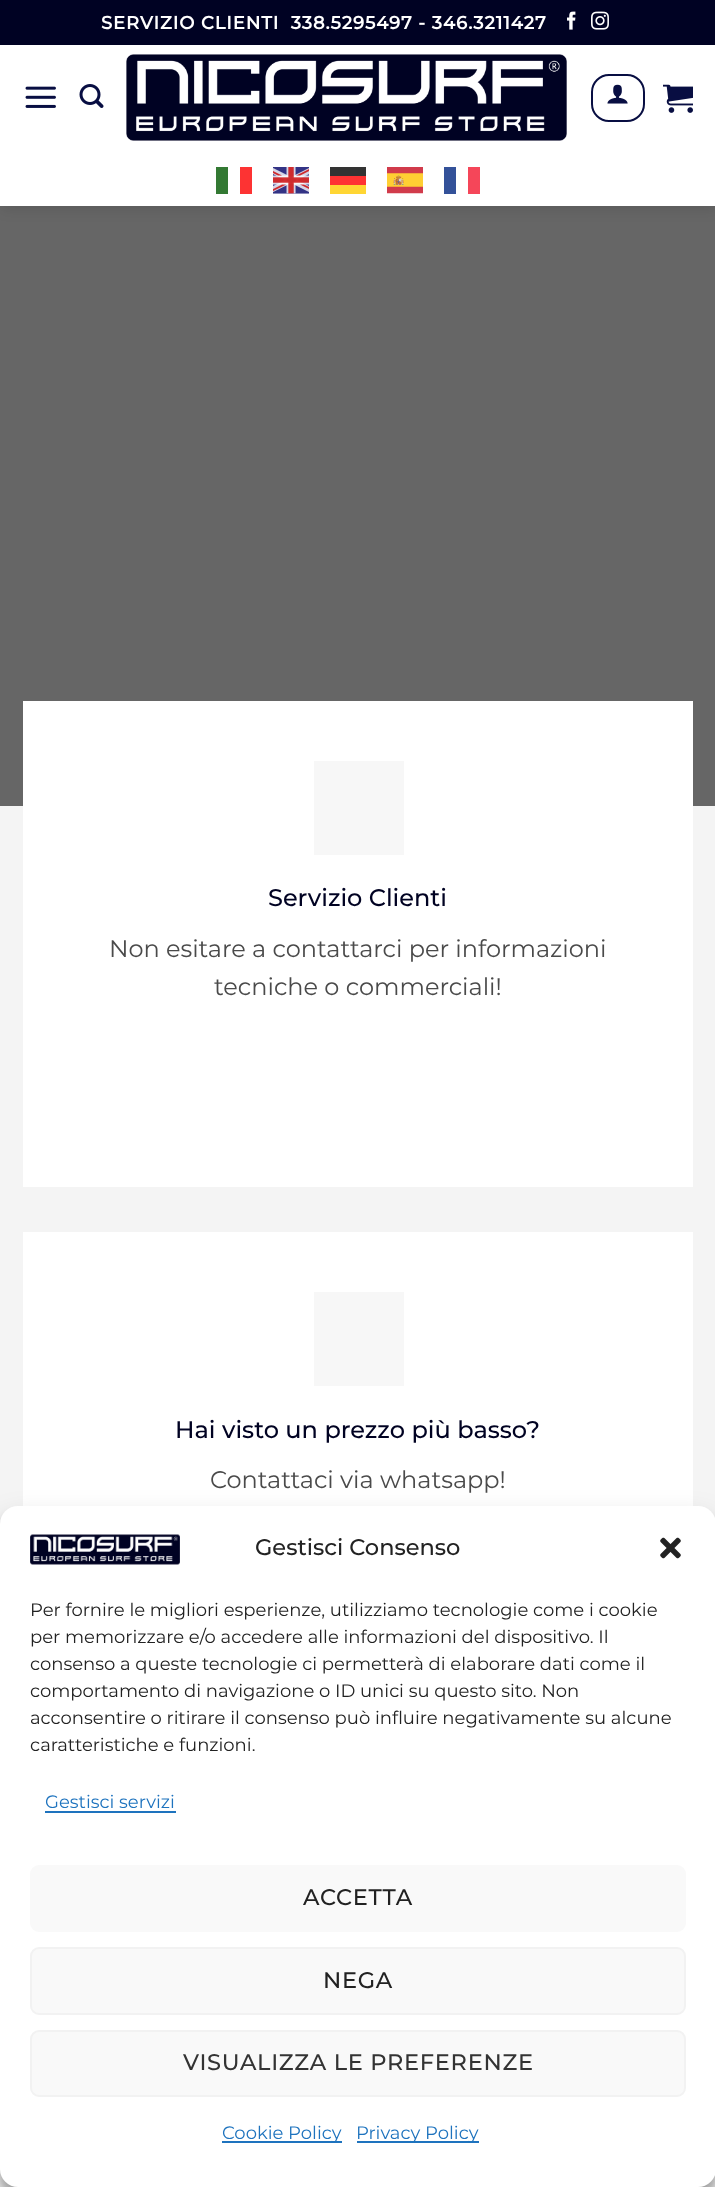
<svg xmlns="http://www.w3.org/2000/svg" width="715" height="2187">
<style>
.a{font:bold 18px Montserrat;letter-spacing:0.9px;fill:#fff}
.b{font:500 24px Montserrat;fill:#000222}
.c{font:24px Montserrat;fill:#4a4a4a}
.d{font:500 22.5px Montserrat;fill:#222}
.e{font:18px Montserrat;fill:#222}
.f{font:18px Montserrat;fill:#1e73be}
.g{font:500 22.5px Montserrat;letter-spacing:0.7px;fill:#222}
.h{font:500 22.5px Montserrat;letter-spacing:0.7px;fill:#333}
</style>
<rect width="100%" height="100%" fill="#666"/>
<path fill="#00000026" filter="blur(7.5px)" d="M2 2h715v205H2z"/>
<path fill="#000223" d="M0 0h715v45H0z"/>
<image href="1.png" x="567" y="11" width="9" height="19"/>
<image href="2.png" x="591" y="11" width="18" height="19"/>
<path fill="#fff" d="M0 45h715v161H0z"/>
<image href="3.png" x="25" y="86" width="31" height="22"/>
<image href="4.png" x="79" y="84" width="25" height="24"/>
<image href="5.png" x="126" y="54" width="441" height="87"/>
<rect fill="none" stroke="#080e42" stroke-width="2" x="592" y="75" width="52" height="46" rx="17"/>
<image href="6.png" x="607" y="84" width="21" height="20"/>
<image href="7.png" x="663" y="84" width="30" height="29"/>
<path fill="#337933" d="M216 167h12v27H216z"/>
<path fill="#fd3333" d="M240 167h12v27H240z"/>
<image href="8.png" x="273" y="167" width="36" height="27"/>
<path fill="#333" d="M330 167h36v9H330z"/>
<image href="9.png" x="387" y="167" width="36" height="27"/>
<path fill="#335199" d="M444 167h12v27H444z"/>
<path fill="#f54659" d="M468 167h12v27H468z"/>
<path fill="#f33" d="M330 176h36v9H330z"/>
<path fill="#ffd633" d="M330 185h36v9H330z"/>
<path fill="#f4f4f4" d="M0 806h715v1381H0z"/>
<path fill="#fff" d="M23 701h670v486H23z"/>
<path fill="#f7f7f7" d="M314 761h90v94H314z"/>
<path fill="#fff" d="M23 1232h670v274H23z"/>
<path fill="#f7f7f7" d="M314 1292h90v94H314z"/>
<rect fill="#0000003b" filter="blur(4.5px)" y="1515" width="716" height="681" rx="18"/>
<rect fill="#00000030" filter="blur(15px)" y="1521" width="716" height="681" rx="18"/>
<rect fill="#fff" y="1506" width="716" height="681" rx="18"/>
<image href="10.png" x="30" y="1534" width="150" height="31"/>
<image href="11.png" x="660" y="1537" width="21" height="22"/>
<path fill="#1e73be" d="M45 1811h131v2H45z"/>
<rect fill="#f9f9f9" x="30" y="1865" width="656" height="67" rx="9"/>
<rect fill="#f9f9f9" stroke="#f2f2f2" stroke-width="2" x="31" y="1948" width="654" height="66" rx="8"/>
<rect fill="#f9f9f9" stroke="#f2f2f2" stroke-width="2" x="31" y="2031" width="654" height="65" rx="8"/>
<path fill="#1e73be" d="M222 2141h120v2H222z"/>
<path fill="#1e73be" d="M357 2141h122v2H357z"/>
<text class="a" xml:space="preserve" x="101" y="29">SERVIZIO CLIENTI  338.5295497 - 346.3211427</text>
<text class="b" x="268" y="906">Servizio Clienti</text>
<text class="c" x="109" y="957">Non esitare a contattarci per informazioni</text>
<text class="c" x="214" y="995">tecniche o commerciali!</text>
<text class="b" x="175" y="1438">Hai visto un prezzo più basso?</text>
<text class="c" x="210" y="1488">Contattaci via whatsapp!</text>
<text class="d" x="255" y="1555">Gestisci Consenso</text>
<text class="e" x="30" y="1616">Per fornire le migliori esperienze, utilizziamo tecnologie come i cookie</text>
<text class="e" x="30" y="1643">per memorizzare e/o accedere alle informazioni del dispositivo. Il</text>
<text class="e" x="30" y="1670">consenso a queste tecnologie ci permetterà di elaborare dati come il</text>
<text class="e" x="30" y="1697">comportamento di navigazione o ID unici su questo sito. Non</text>
<text class="e" x="30" y="1724">acconsentire o ritirare il consenso può influire negativamente su alcune</text>
<text class="e" x="30" y="1751">caratteristiche e funzioni.</text>
<text class="f" x="45" y="1808">Gestisci servizi</text>
<text class="g" x="303" y="1905">ACCETTA</text>
<text class="g" x="323" y="1988">NEGA</text>
<text class="h" x="183" y="2070">VISUALIZZA LE PREFERENZE</text>
<text class="f" x="222" y="2139">Cookie Policy</text>
<text class="f" x="356" y="2139">Privacy Policy</text>
</svg>
